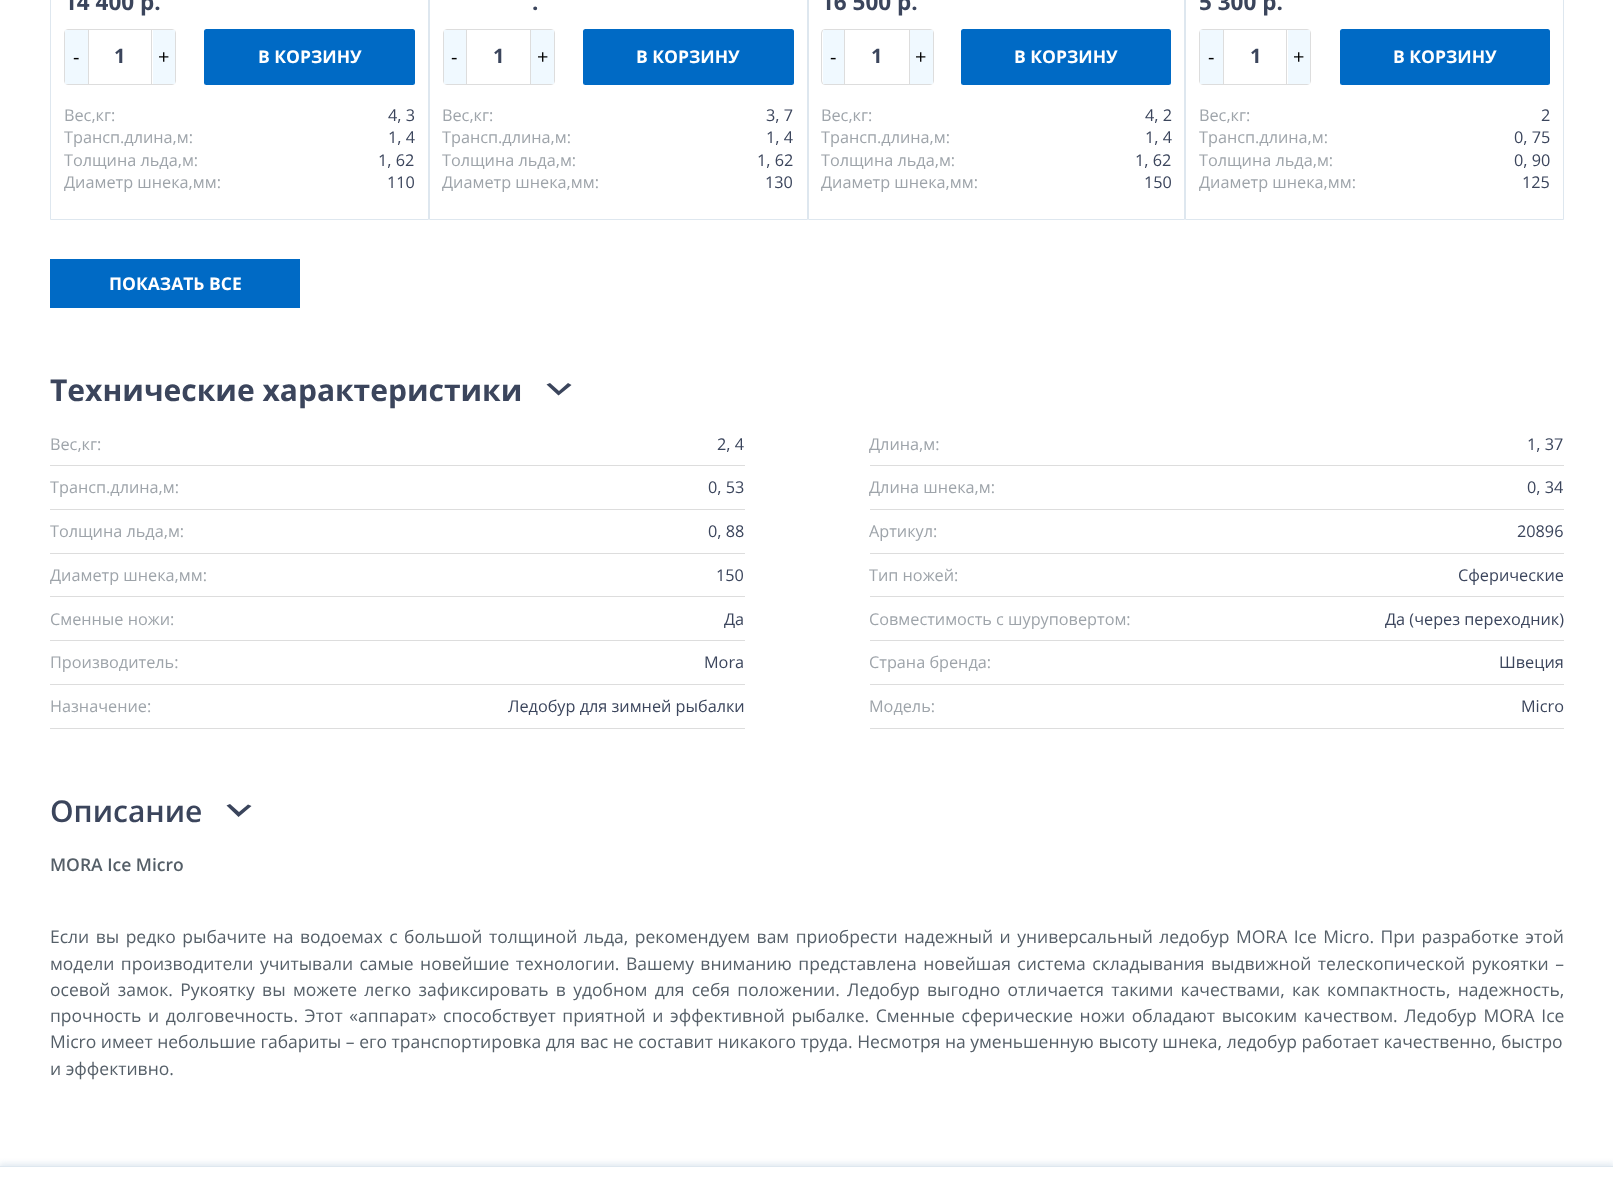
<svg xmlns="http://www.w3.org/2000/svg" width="1613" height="1180">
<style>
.a{font:bold 22.5px Open Sans;fill:#3b455c}
.b{font:20px Open Sans;fill:#000}
.c{font:bold 20px Open Sans;fill:#3b455c}
.d{font:bold 17.5px Open Sans;fill:#fff}
.e{font:16.25px Open Sans;fill:#9ea4aa}
.f{font:16.25px Open Sans;fill:#3b455c}
.g{font:bold 30px Open Sans;fill:#3b455c}
.h{font:600 30px Open Sans;fill:#3b455c}
.i{font:600 17.5px Open Sans;fill:#555f68}
.j{font:17.5px Open Sans;fill:#555f68}
</style>
<defs>
<clipPath id="clip1"><path d="M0 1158h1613v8H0z"/></clipPath>
</defs>
<rect width="100%" height="100%" fill="#fff"/>
<path fill="none" stroke="#dee7ef" d="M50.5 -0.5h378v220H50.5z"/>
<rect fill="none" stroke="#ddd" x="64.5" y="29.5" width="111" height="55" rx="3.5"/>
<path fill="#f0f9ff" d="M65 30h23v54H65z"/>
<path fill="#ddd" d="M151 30h1v54H151z"/>
<path fill="#ddd" d="M88 30h1v54H88z"/>
<path fill="#f0f9ff" d="M153 30h22v54H153z"/>
<rect fill="#006ac5" x="204" y="29" width="211" height="56" rx="2.5"/>
<path fill="none" stroke="#dee7ef" d="M429.5 -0.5h378v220H429.5z"/>
<rect fill="none" stroke="#ddd" x="443.5" y="29.5" width="111" height="55" rx="3.5"/>
<path fill="#f0f9ff" d="M444 30h22v54H444z"/>
<path fill="#ddd" d="M530 30h1v54H530z"/>
<path fill="#ddd" d="M466 30h1v54H466z"/>
<path fill="#f0f9ff" d="M531 30h23v54H531z"/>
<rect fill="#006ac5" x="583" y="29" width="211" height="56" rx="2.5"/>
<path fill="none" stroke="#dee7ef" d="M808.5 -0.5h376v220H808.5z"/>
<rect fill="none" stroke="#ddd" x="821.5" y="29.5" width="112" height="55" rx="3.5"/>
<path fill="#f0f9ff" d="M823 30h21v54H823z"/>
<path fill="#ddd" d="M909 30h1v54H909z"/>
<path fill="#ddd" d="M844 30h1v54H844z"/>
<path fill="#f0f9ff" d="M910 30h23v54H910z"/>
<rect fill="#006ac5" x="961" y="29" width="210" height="56" rx="2.5"/>
<path fill="none" stroke="#dee7ef" d="M1185.5 -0.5h378v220H1185.5z"/>
<rect fill="none" stroke="#ddd" x="1199.5" y="29.5" width="111" height="55" rx="3.5"/>
<path fill="#f0f9ff" d="M1200 30h23v54H1200z"/>
<path fill="#ddd" d="M1286 30h1v54H1286z"/>
<path fill="#ddd" d="M1223 30h1v54H1223z"/>
<path fill="#f0f9ff" d="M1288 30h22v54H1288z"/>
<rect fill="#006ac5" x="1340" y="29" width="210" height="56" rx="2.5"/>
<path fill="#006ac5" d="M50 259h250v49H50z"/>
<path fill="#3b455c" d="M550 383l9 8l9-8l3.5 2l-13 10.5l-12-11z"/>
<path fill="#ddd" d="M50 465h695v1H50z"/>
<path fill="#ddd" d="M870 465h694v1H870z"/>
<path fill="#ddd" d="M50 509h695v1H50z"/>
<path fill="#ddd" d="M870 509h694v1H870z"/>
<path fill="#ddd" d="M50 553h695v1H50z"/>
<path fill="#ddd" d="M870 553h694v1H870z"/>
<path fill="#ddd" d="M50 596h695v1H50z"/>
<path fill="#ddd" d="M870 596h694v1H870z"/>
<path fill="#ddd" d="M50 640h695v1H50z"/>
<path fill="#ddd" d="M870 640h694v1H870z"/>
<path fill="#ddd" d="M50 684h695v1H50z"/>
<path fill="#ddd" d="M870 684h694v1H870z"/>
<path fill="#ddd" d="M50 728h695v1H50z"/>
<path fill="#ddd" d="M870 728h694v1H870z"/>
<path fill="#3b455c" d="M230 804l9 8l9-7.5l3.5 1.5l-13 11l-12-11.5z"/>
<g clip-path="url(#clip1)">
<path fill="#dee7ef" filter="blur(3px)" d="M-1 1164h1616v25H-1z"/>
</g>
<path fill="#dee7ef" d="M0 1166h1613v1H0z"/>
<text class="a" x="64" y="10">14 400 р.</text>
<text class="b" x="73" y="64">-</text>
<text class="c" x="114" y="63">1</text>
<text class="b" x="158" y="64">+</text>
<text class="d" x="258" y="63">В КОРЗИНУ</text>
<text class="e" x="64" y="121">Вес,кг:</text>
<text class="f" x="388" y="121">4, 3</text>
<text class="e" x="64" y="143">Трансп.длина,м:</text>
<text class="f" x="388" y="143">1, 4</text>
<text class="e" x="64" y="166">Толщина льда,м:</text>
<text class="f" x="378" y="166">1, 62</text>
<text class="e" x="64" y="188">Диаметр шнека,мм:</text>
<text class="f" x="387" y="188">110</text>
<text class="a" x="532" y="10">.</text>
<text class="b" x="451" y="64">-</text>
<text class="c" x="493" y="63">1</text>
<text class="b" x="537" y="64">+</text>
<text class="d" x="636" y="63">В КОРЗИНУ</text>
<text class="e" x="442" y="121">Вес,кг:</text>
<text class="f" x="766" y="121">3, 7</text>
<text class="e" x="442" y="143">Трансп.длина,м:</text>
<text class="f" x="766" y="143">1, 4</text>
<text class="e" x="442" y="166">Толщина льда,м:</text>
<text class="f" x="757" y="166">1, 62</text>
<text class="e" x="442" y="188">Диаметр шнека,мм:</text>
<text class="f" x="765" y="188">130</text>
<text class="a" x="821" y="10">16 500 р.</text>
<text class="b" x="830" y="64">-</text>
<text class="c" x="871" y="63">1</text>
<text class="b" x="915" y="64">+</text>
<text class="d" x="1014" y="63">В КОРЗИНУ</text>
<text class="e" x="821" y="121">Вес,кг:</text>
<text class="f" x="1145" y="121">4, 2</text>
<text class="e" x="821" y="143">Трансп.длина,м:</text>
<text class="f" x="1145" y="143">1, 4</text>
<text class="e" x="821" y="166">Толщина льда,м:</text>
<text class="f" x="1135" y="166">1, 62</text>
<text class="e" x="821" y="188">Диаметр шнека,мм:</text>
<text class="f" x="1144" y="188">150</text>
<text class="a" x="1199" y="10">5 300 р.</text>
<text class="b" x="1208" y="64">-</text>
<text class="c" x="1250" y="63">1</text>
<text class="b" x="1293" y="64">+</text>
<text class="d" x="1393" y="63">В КОРЗИНУ</text>
<text class="e" x="1199" y="121">Вес,кг:</text>
<text class="f" x="1541" y="121">2</text>
<text class="e" x="1199" y="143">Трансп.длина,м:</text>
<text class="f" x="1514" y="143">0, 75</text>
<text class="e" x="1199" y="166">Толщина льда,м:</text>
<text class="f" x="1514" y="166">0, 90</text>
<text class="e" x="1199" y="188">Диаметр шнека,мм:</text>
<text class="f" x="1522" y="188">125</text>
<text class="d" x="109" y="290">ПОКАЗАТЬ ВСЕ</text>
<text class="g" x="50" y="401">Технические характеристики</text>
<text class="e" x="50" y="450">Вес,кг:</text>
<text class="f" x="717" y="450">2, 4</text>
<text class="e" x="869" y="450">Длина,м:</text>
<text class="f" x="1527" y="450">1, 37</text>
<text class="e" x="50" y="493">Трансп.длина,м:</text>
<text class="f" x="708" y="493">0, 53</text>
<text class="e" x="869" y="493">Длина шнека,м:</text>
<text class="f" x="1527" y="493">0, 34</text>
<text class="e" x="50" y="537">Толщина льда,м:</text>
<text class="f" x="708" y="537">0, 88</text>
<text class="e" x="869" y="537">Артикул:</text>
<text class="f" x="1517" y="537">20896</text>
<text class="e" x="50" y="581">Диаметр шнека,мм:</text>
<text class="f" x="716" y="581">150</text>
<text class="e" x="869" y="581">Тип ножей:</text>
<text class="f" x="1458" y="581">Сферические</text>
<text class="e" x="50" y="625">Сменные ножи:</text>
<text class="f" x="724" y="625">Да</text>
<text class="e" x="869" y="625">Совместимость с шуруповертом:</text>
<text class="f" x="1385" y="625">Да (через переходник)</text>
<text class="e" x="50" y="668">Производитель:</text>
<text class="f" x="704" y="668">Mora</text>
<text class="e" x="869" y="668">Страна бренда:</text>
<text class="f" x="1499" y="668">Швеция</text>
<text class="e" x="50" y="712">Назначение:</text>
<text class="f" x="508" y="712">Ледобур для зимней рыбалки</text>
<text class="e" x="869" y="712">Модель:</text>
<text class="f" x="1521" y="712">Micro</text>
<text class="h" x="50" y="822">Описание</text>
<text class="i" x="50" y="871">MORA Ice Micro</text>
<text class="j" x="50" y="943" word-spacing="1.9">Если вы редко рыбачите на водоемах с большой толщиной льда, рекомендуем вам приобрести надежный и универсальный ледобур MORA Ice Micro. При разработке этой</text>
<text class="j" x="50" y="970" word-spacing="1.9">модели производители учитывали самые новейшие технологии. Вашему вниманию представлена новейшая система складывания выдвижной телескопической рукоятки –</text>
<text class="j" x="50" y="996" word-spacing="2.75">осевой замок. Рукоятку вы можете легко зафиксировать в удобном для себя положении. Ледобур выгодно отличается такими качествами, как компактность, надежность,</text>
<text class="j" x="50" y="1022" word-spacing="2.1">прочность и долговечность. Этот «аппарат» способствует приятной и эффективной рыбалке. Сменные сферические ножи обладают высоким качеством. Ледобур MORA Ice</text>
<text class="j" x="50" y="1048">Micro имеет небольшие габариты – его транспортировка для вас не составит никакого труда. Несмотря на уменьшенную высоту шнека, ледобур работает качественно, быстро</text>
<text class="j" x="50" y="1075">и эффективно.</text>
</svg>
